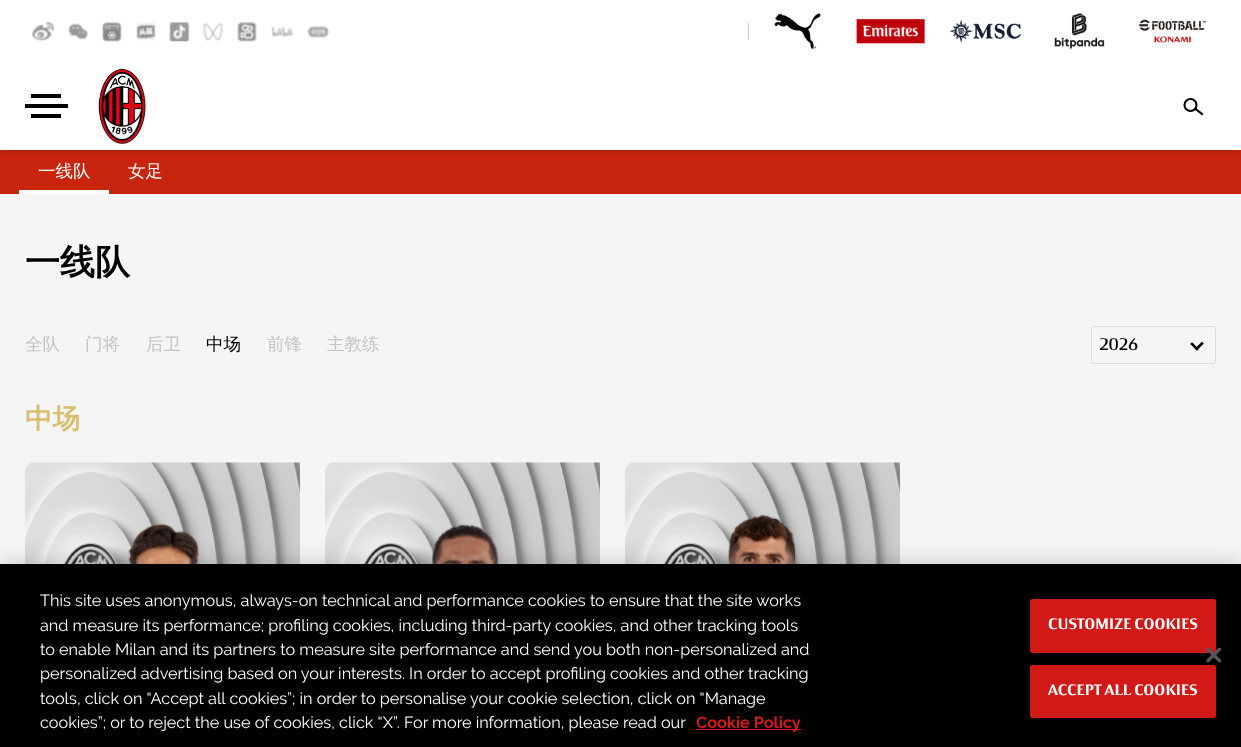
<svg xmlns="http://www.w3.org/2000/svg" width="1241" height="747">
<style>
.a{font:500 17.5px WenQuanYi Zen Hei;fill:#fff}
.b{font:bold 35px WenQuanYi Zen Hei;fill:#000}
.c{font:500 17.5px WenQuanYi Zen Hei;fill:#c4c4c4}
.d{font:500 17.5px WenQuanYi Zen Hei;fill:#000}
.e{font:17.5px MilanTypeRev;fill:#000}
.f{font:bold 27.5px WenQuanYi Zen Hei;fill:#d8be6d}
.g{font:16.25px Raleway;fill:#fff}
.h{font:bold 16.25px Raleway;fill:#d11917}
.i{font:bold 15px MilanTypeRev;letter-spacing:0.1px;fill:#fff}
</style>
<rect width="100%" height="100%" fill="#f5f5f5"/>
<path fill="#c9240d" d="M0 150h1241v44H0z"/>
<path fill="#00000033" filter="blur(6px)" d="M0 0h1241v150H0z"/>
<path fill="#fff" d="M0 0h1241v150H0z"/>
<image href="1.png" x="32" y="22" width="23" height="19"/>
<image href="2.png" x="68" y="23" width="20" height="17"/>
<image href="3.png" x="102" y="22" width="20" height="20"/>
<image href="4.png" x="136" y="22" width="20" height="19"/>
<image href="5.png" x="169" y="22" width="21" height="20"/>
<image href="6.png" x="203" y="23" width="20" height="18"/>
<image href="7.png" x="237" y="22" width="20" height="20"/>
<image href="8.png" x="271" y="27" width="22" height="10"/>
<image href="9.png" x="307" y="26" width="23" height="13"/>
<path fill="#ccc" d="M748 23h1v17H748z"/>
<image href="10.png" x="774" y="13" width="47" height="36"/>
<image href="11.png" x="856" y="19" width="69" height="25"/>
<image href="12.png" x="949" y="19" width="72" height="24"/>
<image href="13.png" x="1054" y="13" width="51" height="36"/>
<image href="14.png" x="1139" y="19" width="67" height="24"/>
<path fill="#000" d="M31 94h30v4H31z"/>
<path fill="#000" d="M25 104h43v4H25z"/>
<path fill="#000" d="M31 114h30v4H31z"/>
<image href="15.png" x="98" y="68" width="48" height="76"/>
<path fill="none" stroke="#000" stroke-width="2.1" stroke-linecap="square" d="M1202 114l-6.5-5"/>
<circle fill="none" stroke="#000" stroke-width="2.1" cx="1190.5" cy="105" r="6"/>
<path fill="#fff" d="M19 190h90v4H19z"/>
<rect fill="none" stroke="#dfdbdb" x="1091.5" y="326.5" width="124" height="37" rx="2"/>
<path fill="none" stroke="#000" stroke-width="2.5" stroke-linecap="square" d="M1197 348.5l5-5m-10 .5l5 5"/>
<image href="16.png" x="25" y="462" width="275" height="102"/>
<image href="17.png" x="128" y="523" width="71" height="41"/>
<image href="16.png" x="325" y="462" width="275" height="102"/>
<image href="18.png" x="431" y="524" width="68" height="40"/>
<image href="16.png" x="625" y="462" width="275" height="102"/>
<image href="19.png" x="725" y="514" width="72" height="50"/>
<path fill="#00000033" filter="blur(11px)" d="M0 564h1241v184H0z"/>
<path fill="#000" d="M0 564h1241v183H0z"/>
<path fill="#d11917" d="M696 729h105v1H696z"/>
<rect fill="#d11917" stroke="#d11917" stroke-width="3" x="1031.5" y="600.5" width="183" height="51" rx="1"/>
<rect fill="#d11917" stroke="#d11917" stroke-width="3" x="1031.5" y="666.5" width="183" height="50" rx="1"/>
<image href="20.png" x="1206" y="648" width="15" height="15"/>
<text class="a" x="38" y="177">一线队</text>
<text class="a" x="128" y="177">女足</text>
<text class="b" x="25" y="274">一线队</text>
<text class="c" x="25" y="350">全队</text>
<text class="c" x="85" y="350">门将</text>
<text class="c" x="146" y="350">后卫</text>
<text class="d" x="206" y="350">中场</text>
<text class="c" x="267" y="350">前锋</text>
<text class="c" x="327" y="350">主教练</text>
<text class="e" x="1099" y="350">2026</text>
<text class="f" x="25" y="428">中场</text>
<text class="g" x="40" y="606">This site uses anonymous, always-on technical and performance cookies to ensure that the site works</text>
<text class="g" x="40" y="631">and measure its performance; profiling cookies, including third-party cookies, and other tracking tools</text>
<text class="g" x="40" y="655">to enable Milan and its partners to measure site performance and send you both non-personalized and</text>
<text class="g" x="40" y="679">personalized advertising based on your interests. In order to accept profiling cookies and other tracking</text>
<text class="g" x="40" y="704">tools, click on “Accept all cookies”; in order to personalise your cookie selection, click on “Manage</text>
<text class="g" x="40" y="728">cookies”; or to reject the use of cookies, click “X”. For more information, please read our</text>
<text class="h" x="696" y="728">Cookie Policy</text>
<text class="i" x="1048" y="629">CUSTOMIZE COOKIES</text>
<text class="i" x="1048" y="695">ACCEPT ALL COOKIES</text>
</svg>
